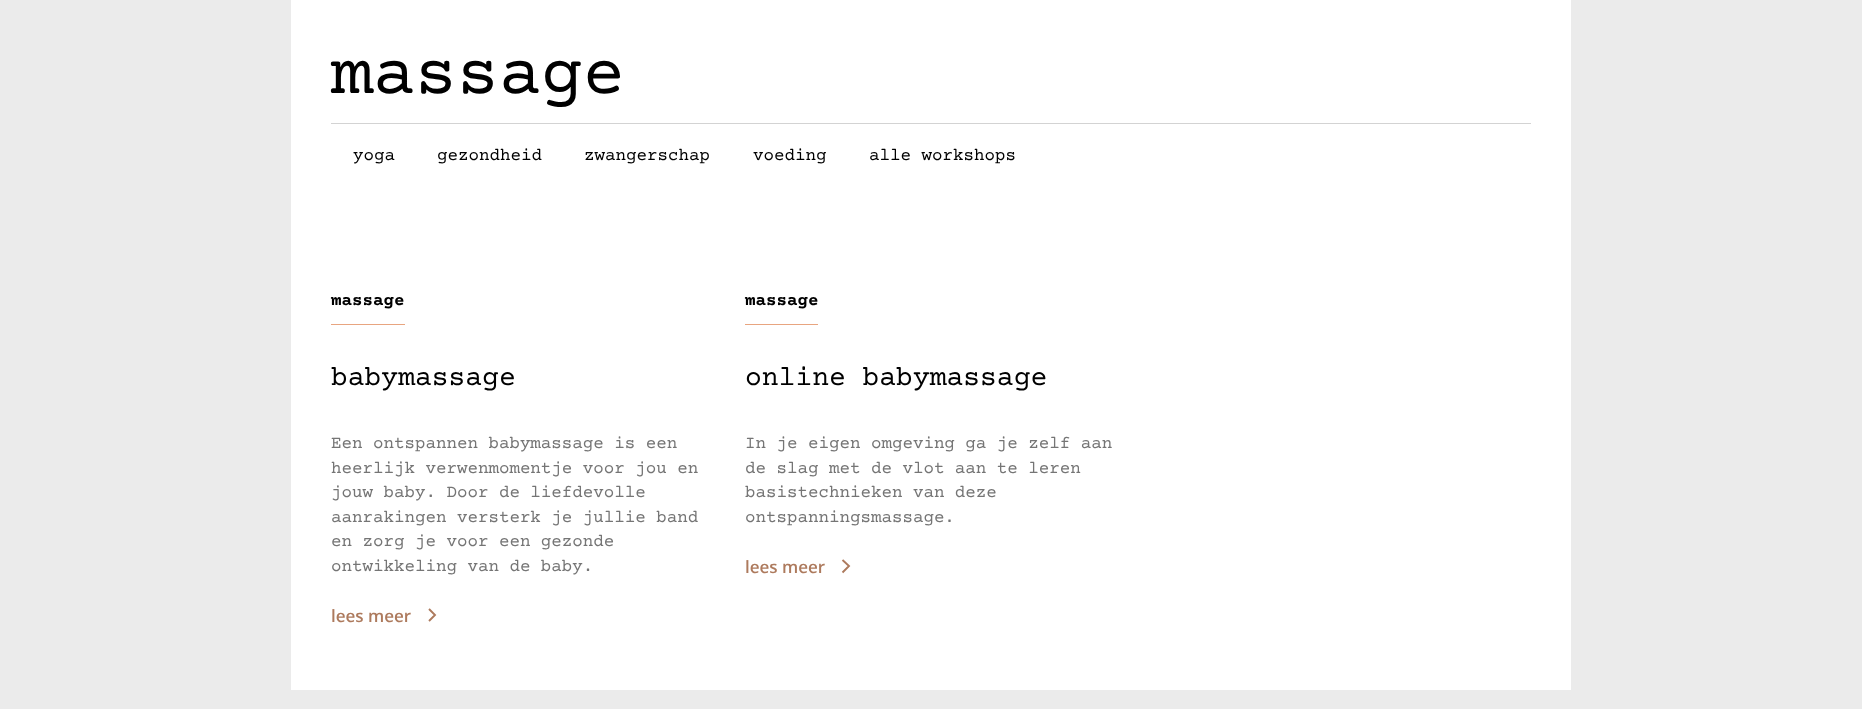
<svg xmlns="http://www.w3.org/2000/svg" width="1862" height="709">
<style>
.a{font:70px Courier Prime;fill:#000}
.b{font:17.5px Courier Prime;fill:#000}
.c{font:bold 17.5px Courier Prime;fill:#000}
.d{font:28px Courier Prime;fill:#000}
.e{font:17.5px Courier Prime;fill:#757575}
.f{font:600 17px Open Sans;fill:#ad7a5d}
</style>
<rect width="100%" height="100%" fill="#ebebeb"/>
<path fill="#fff" d="M291 0h1280v690H291z"/>
<path fill="#d3d3d3" d="M331 123h1200v1H331z"/>
<path fill="#e8a580" d="M331 324h74v1H331z"/>
<path fill="none" stroke="#ad7a5d" stroke-width="1.9" d="M429 609l6 6l-6 6"/>
<path fill="#e8a580" d="M745 324h73v1H745z"/>
<path fill="none" stroke="#ad7a5d" stroke-width="1.9" d="M842.5 560l6.5 6l-6.5 6.5"/>
<text class="a" x="331" y="93">massage</text>
<text class="b" x="353" y="160">yoga</text>
<text class="b" x="437" y="160">gezondheid</text>
<text class="b" x="584" y="160">zwangerschap</text>
<text class="b" x="753" y="160">voeding</text>
<text class="b" x="869" y="160">alle workshops</text>
<text class="c" x="331" y="305">massage</text>
<text class="d" x="331" y="385">babymassage</text>
<text class="e" x="331" y="448">Een ontspannen babymassage is een</text>
<text class="e" x="331" y="473">heerlijk verwenmomentje voor jou en</text>
<text class="e" x="331" y="497">jouw baby. Door de liefdevolle</text>
<text class="e" x="331" y="522">aanrakingen versterk je jullie band</text>
<text class="e" x="331" y="546">en zorg je voor een gezonde</text>
<text class="e" x="331" y="571">ontwikkeling van de baby.</text>
<text class="f" x="331" y="622">lees meer</text>
<text class="c" x="745" y="305">massage</text>
<text class="d" x="745" y="385">online babymassage</text>
<text class="e" x="745" y="448">In je eigen omgeving ga je zelf aan</text>
<text class="e" x="745" y="473">de slag met de vlot aan te leren</text>
<text class="e" x="745" y="497">basistechnieken van deze</text>
<text class="e" x="745" y="522">ontspanningsmassage.</text>
<text class="f" x="745" y="573">lees meer</text>
</svg>
